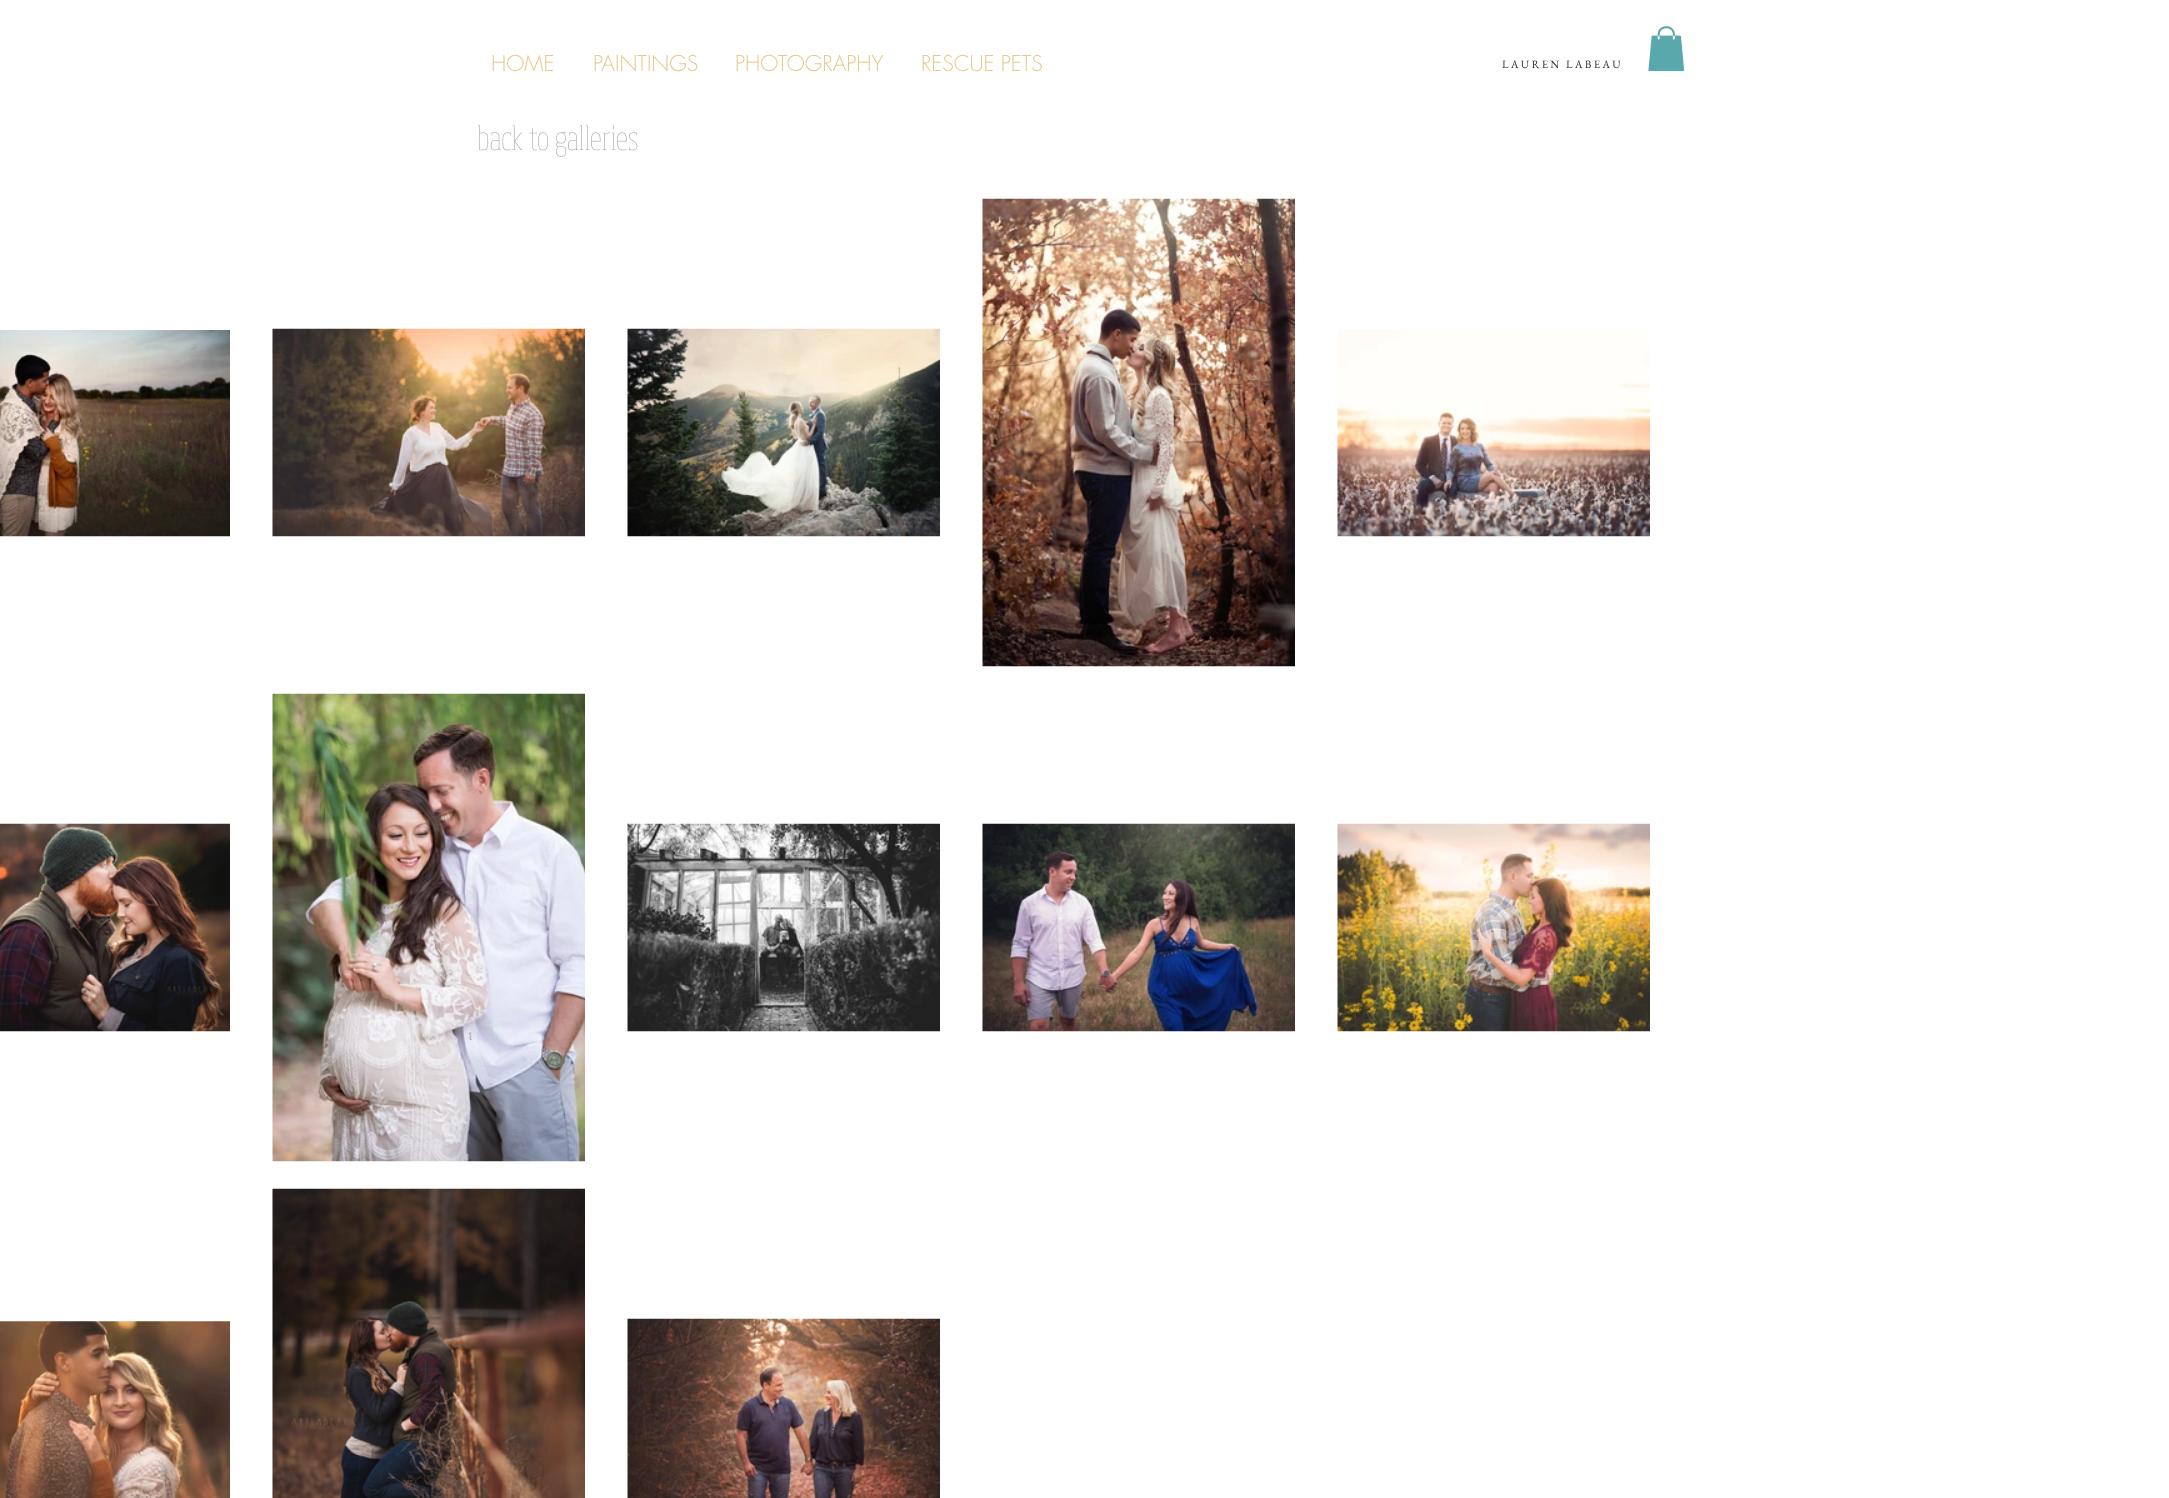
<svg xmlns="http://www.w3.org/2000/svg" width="2169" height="1498">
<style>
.a{font:300 21.25px futura;fill:#e8c88b}
.b{font:11.25px EB Garamond;letter-spacing:2.25px;fill:#2b2b2b}
</style>
<rect width="100%" height="100%" fill="#fff"/>
<image href="1.png" x="1648" y="26" width="37" height="46"/>
<image href="2.png" x="478" y="125" width="160" height="32"/>
<image href="3.png" x="0" y="330" width="230" height="207"/>
<image href="4.png" x="272" y="328" width="313" height="209"/>
<image href="5.png" x="627" y="328" width="313" height="209"/>
<image href="6.png" x="982" y="198" width="313" height="469"/>
<image href="7.png" x="1337" y="329" width="313" height="208"/>
<image href="8.png" x="0" y="823" width="230" height="209"/>
<image href="9.png" x="272" y="693" width="313" height="469"/>
<image href="10.png" x="627" y="823" width="313" height="209"/>
<image href="11.png" x="982" y="823" width="313" height="209"/>
<image href="12.png" x="1337" y="823" width="313" height="209"/>
<image href="13.png" x="0" y="1321" width="230" height="177"/>
<image href="14.png" x="272" y="1188" width="313" height="310"/>
<image href="15.png" x="627" y="1318" width="313" height="180"/>
<text class="a" x="491" y="71">HOME</text>
<text class="a" x="593" y="71">PAINTINGS</text>
<text class="a" x="735" y="71">PHOTOGRAPHY</text>
<text class="a" x="921" y="71">RESCUE PETS</text>
<text class="b" x="1502" y="68">LAUREN LABEAU</text>
</svg>
